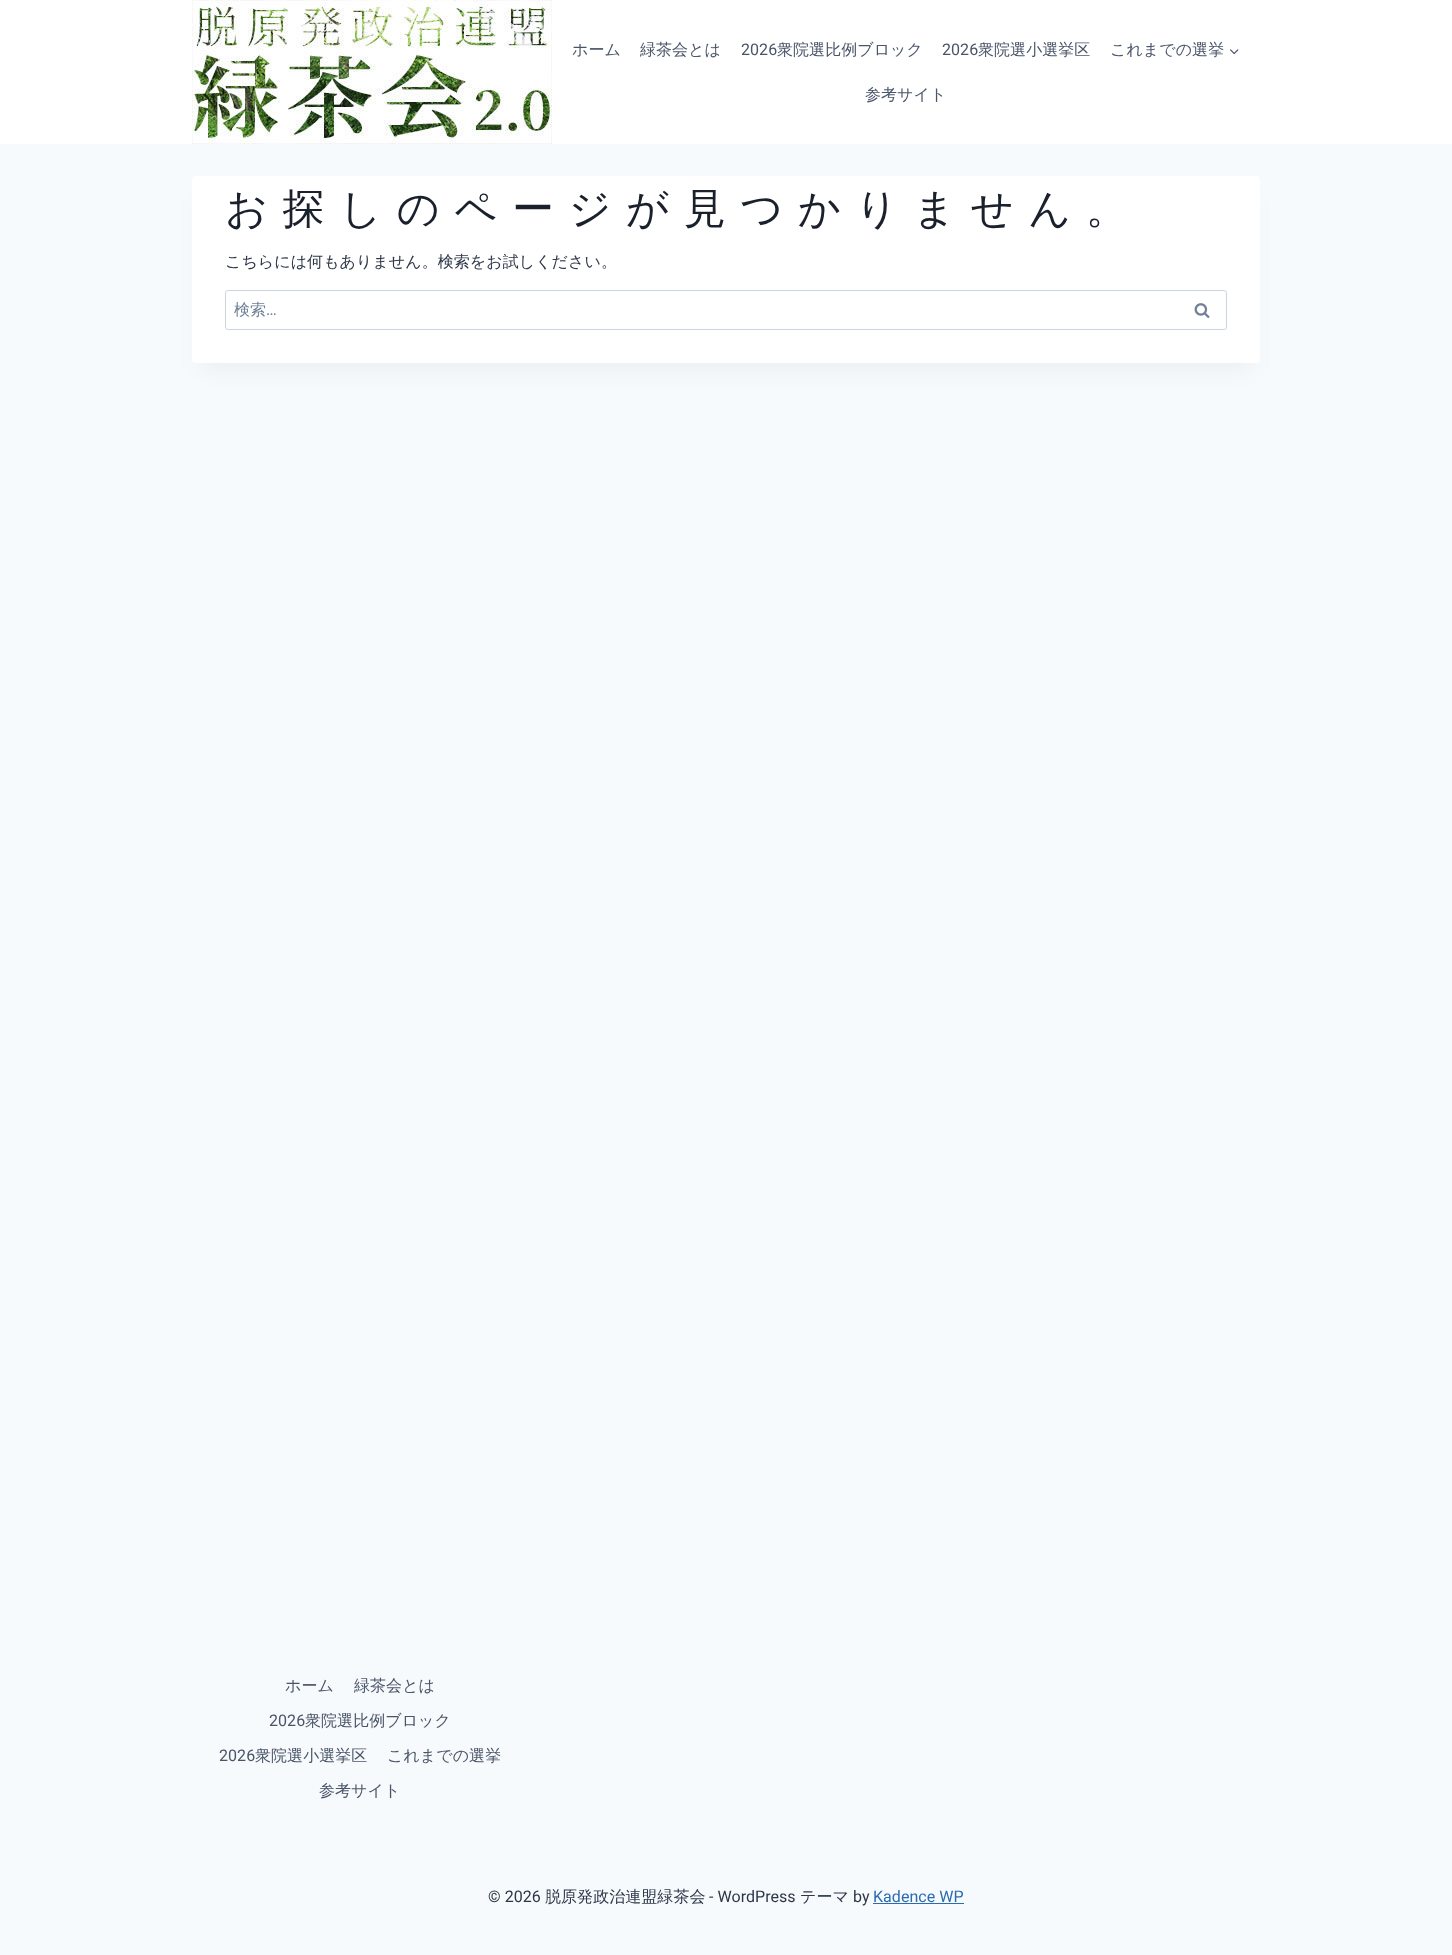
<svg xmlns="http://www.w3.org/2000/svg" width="1452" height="1955">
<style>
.a{font:500 16px WenQuanYi Zen Hei;letter-spacing:0.05px;fill:#4a5568}
.b{font:16px Roboto;letter-spacing:0.05px;fill:#4a5568}
.c{font:500 42px WenQuanYi Zen Hei;letter-spacing:14.6px;fill:#1a202c}
.d{font:500 16px WenQuanYi Zen Hei;letter-spacing:0.05px;fill:#2d3748}
.e{font:500 16px WenQuanYi Zen Hei;letter-spacing:0.05px;fill:#718096}
.f{font:16px Roboto;letter-spacing:0.05px;fill:#718096}
.g{font:16px Roboto;letter-spacing:0.05px;fill:#2d3748}
.h{font:16px Roboto;letter-spacing:0.05px;fill:#2b6cb0}
</style>
<rect width="100%" height="100%" fill="#f7fafc"/>
<path fill="#fff" d="M0 0h1452v144H0z"/>
<image href="1.png" x="192" y="0" width="360" height="144"/>
<image href="2.png" x="1230" y="49" width="9" height="6"/>
<path fill="#0000000d" filter="blur(12.5px)" d="M202 201h1048v167H202z"/>
<rect fill="#fff" x="192" y="176" width="1068" height="187" rx="4"/>
<rect fill="none" stroke="#cbd5e0" x="225.5" y="290.5" width="1001" height="39" rx="2.5"/>
<image href="3.png" x="1194" y="303" width="16" height="15"/>
<path fill="#2b6cb0" d="M873 1903h91v1H873z"/>
<text class="a" x="572" y="55">ホーム</text>
<text class="a" x="640" y="55">緑茶会とは</text>
<text class="b" x="741" y="55">2026</text>
<text class="a" x="777" y="55">衆院選比例ブロック</text>
<text class="b" x="942" y="55">2026</text>
<text class="a" x="978" y="55">衆院選小選挙区</text>
<text class="a" x="1110" y="55">これまでの選挙</text>
<text class="a" x="865" y="100">参考サイト</text>
<text class="c" x="225" y="223">お探しのページが見つかりません。</text>
<text class="d" x="225" y="267">こちらには何もありません。検索をお試しください。</text>
<text class="e" x="234" y="315">検索</text>
<text class="f" x="266" y="315">…</text>
<text class="a" x="285" y="1691">ホーム</text>
<text class="a" x="354" y="1691">緑茶会とは</text>
<text class="b" x="269" y="1726">2026</text>
<text class="a" x="305" y="1726">衆院選比例ブロック</text>
<text class="b" x="219" y="1761">2026</text>
<text class="a" x="255" y="1761">衆院選小選挙区</text>
<text class="a" x="387" y="1761">これまでの選挙</text>
<text class="a" x="319" y="1796">参考サイト</text>
<text class="g" x="488" y="1902">© 2026</text>
<text class="d" x="545" y="1902">脱原発政治連盟緑茶会</text>
<text class="g" x="709" y="1902">- WordPress</text>
<text class="d" x="800" y="1902">テーマ</text>
<text class="g" x="853" y="1902">by</text>
<text class="h" x="873" y="1902">Kadence WP</text>
</svg>
